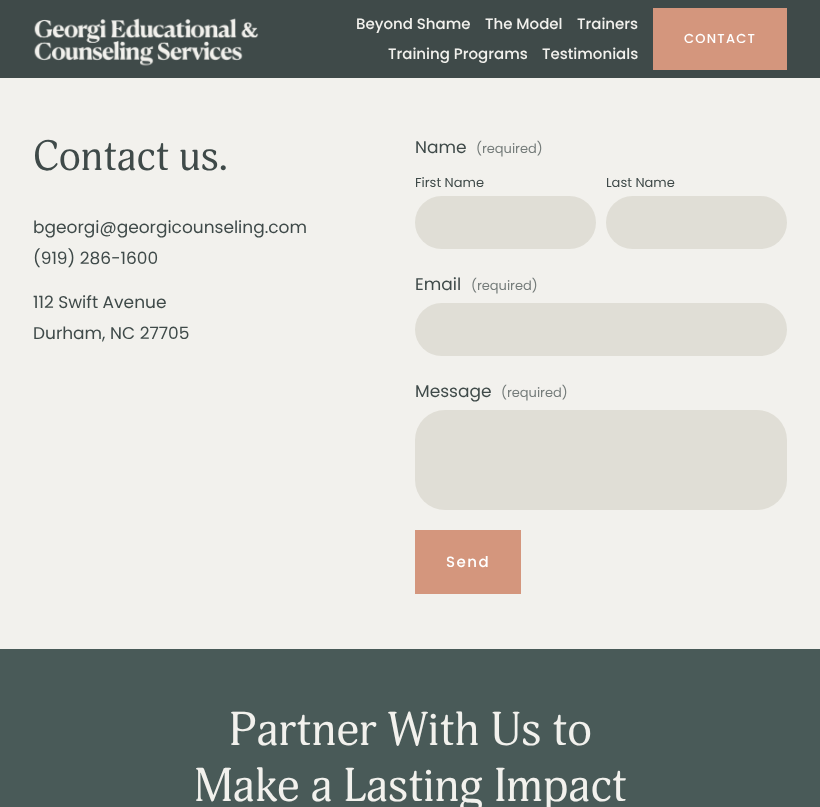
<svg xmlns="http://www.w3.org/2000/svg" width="820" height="807">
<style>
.a{font:500 15px Poppins;fill:#f2f1ed}
.b{font:500 13px Poppins;letter-spacing:1.25px;fill:#fff}
.c{font:41.5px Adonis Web;fill:#3f4a49}
.d{font:17px Poppins;fill:#3f4a49}
.e{font:13px Poppins;fill:#757c7a}
.f{font:13px Poppins;fill:#3f4a49}
.g{font:500 15px Poppins;letter-spacing:1.5px;fill:#fff}
.h{font:46.5px Adonis Web;fill:#f2f1ed}
</style>
<rect width="100%" height="100%" fill="#f2f1ed"/>
<path fill="#3f4a49" d="M0 0h820v78H0z"/>
<image href="1.png" x="34" y="18" width="225" height="48"/>
<path fill="#d4967d" d="M653 8h134v62H653z"/>
<rect fill="#e0ded6" x="415" y="196" width="181" height="53" rx="26.5"/>
<rect fill="#e0ded6" x="606" y="196" width="181" height="53" rx="26.5"/>
<rect fill="#e0ded6" x="415" y="303" width="372" height="53" rx="26.5"/>
<rect fill="#e0ded6" x="415" y="410" width="372" height="100" rx="30"/>
<path fill="#d4967d" d="M415 530h106v64H415z"/>
<path fill="#495a58" d="M0 649h820v158H0z"/>
<text class="a" x="356" y="29">Beyond Shame</text>
<text class="a" x="485" y="29">The Model</text>
<text class="a" x="577" y="29">Trainers</text>
<text class="a" x="388" y="59">Training Programs</text>
<text class="a" x="542" y="59">Testimonials</text>
<text class="b" x="684" y="43">CONTACT</text>
<text class="c" x="33" y="170">Contact us.</text>
<text class="d" x="33" y="233">bgeorgi@georgicounseling.com</text>
<text class="d" x="33" y="264">(919) 286-1600</text>
<text class="d" x="33" y="308">112 Swift Avenue</text>
<text class="d" x="33" y="339">Durham, NC 27705</text>
<text class="d" x="415" y="153">Name</text>
<text class="e" x="476" y="153">(required)</text>
<text class="f" x="415" y="187">First Name</text>
<text class="f" x="606" y="187">Last Name</text>
<text class="d" x="415" y="290">Email</text>
<text class="e" x="471" y="290">(required)</text>
<text class="d" x="415" y="397">Message</text>
<text class="e" x="501" y="397">(required)</text>
<text class="g" x="446" y="567">Send</text>
<text class="h" x="229" y="745">Partner With Us to</text>
<text class="h" x="194" y="801">Make a Lasting Impact</text>
</svg>
